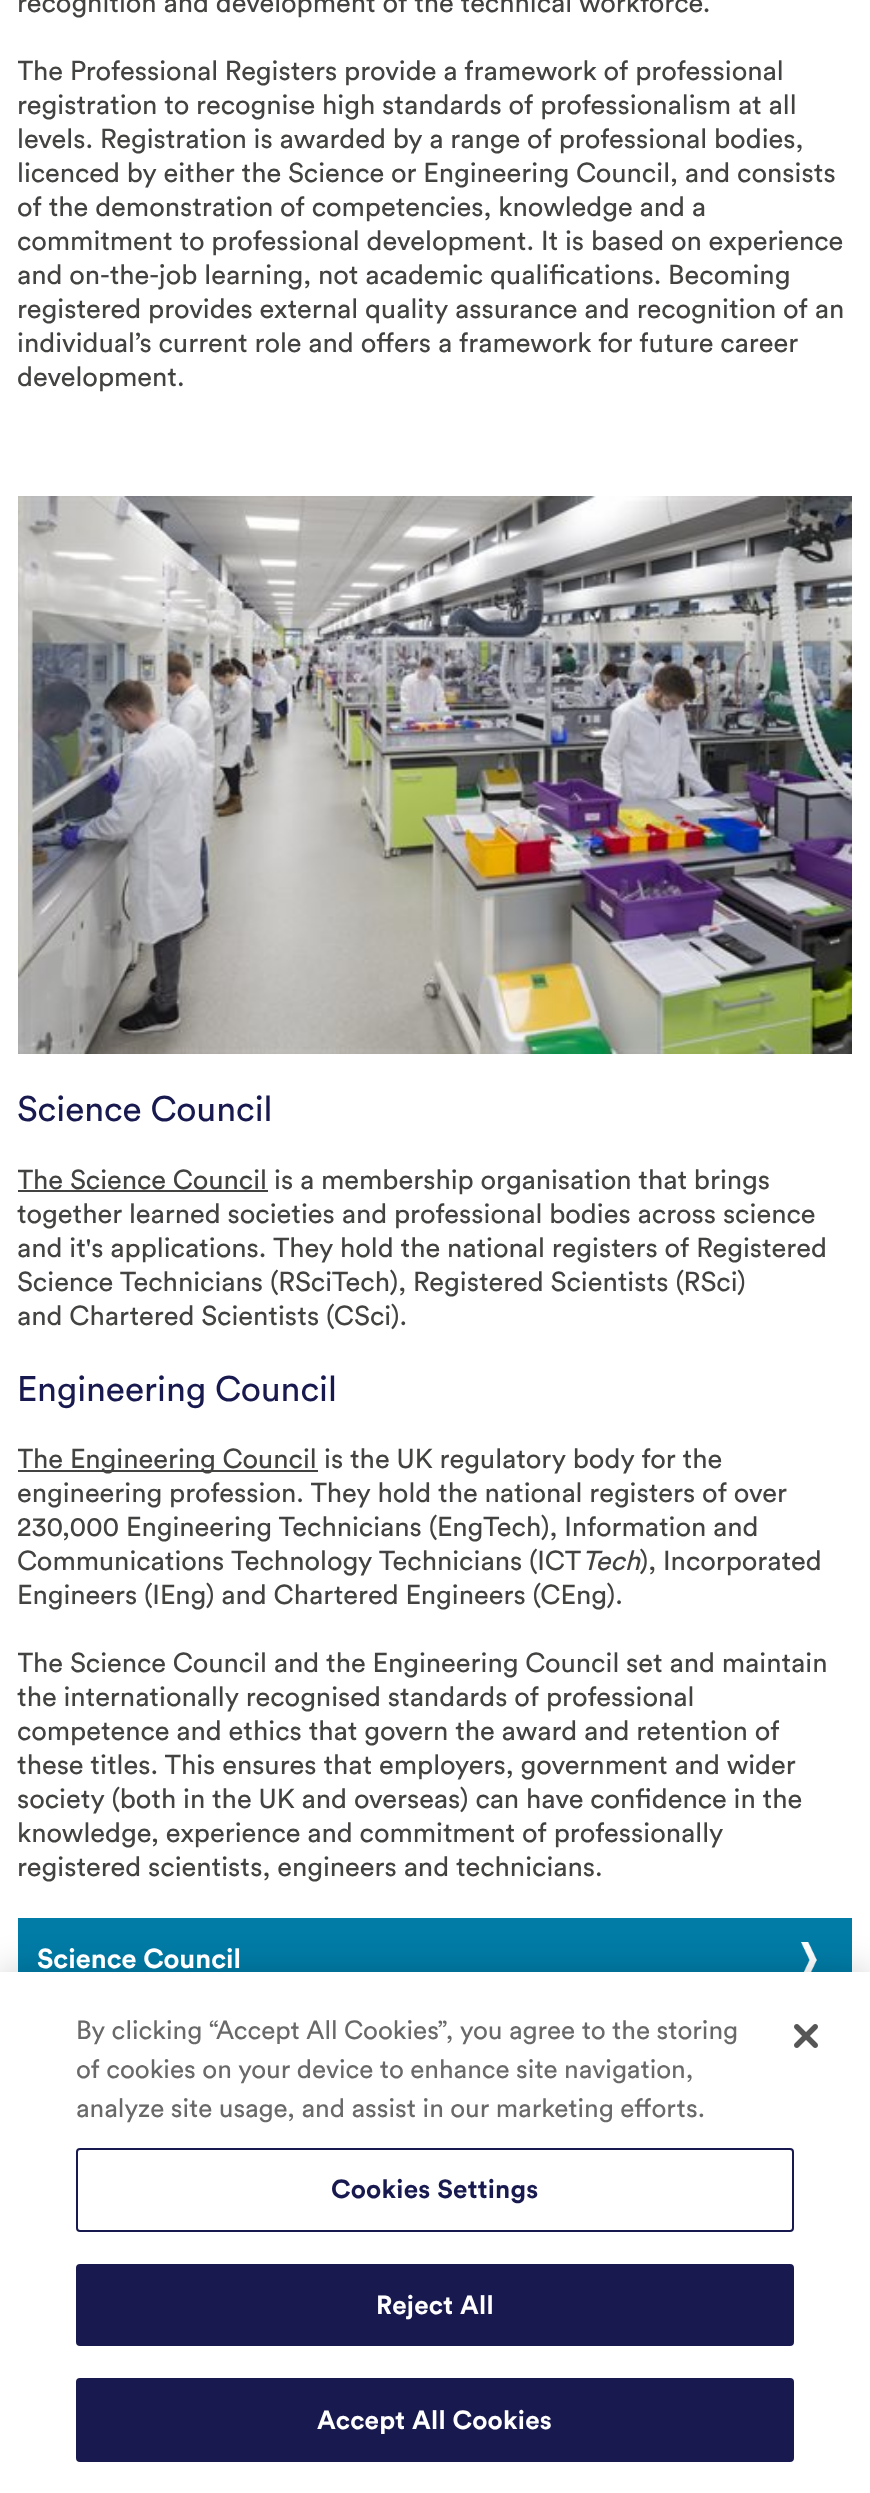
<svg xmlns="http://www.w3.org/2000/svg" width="870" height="2493">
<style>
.a{font:27.2px Circular;fill:#434341}
.b{font:35.25px Circular;fill:#18194f}
.c{font:italic 27.2px Circular;fill:#434341}
.d{font:bold 27.2px Circular;fill:#fff}
.e{font:26px Circular;fill:#696969}
.f{font:bold 26px Circular;letter-spacing:0.25px;fill:#18194f}
.g{font:bold 26px Circular;letter-spacing:0.25px;fill:#fff}
</style>
<defs>
<clipPath id="clip1"><path d="M18 0h834v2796H18z"/></clipPath>
</defs>
<rect width="100%" height="100%" fill="#fff"/>
<image href="1.png" x="18" y="496" width="834" height="558"/>
<path fill="#434341" d="M18 1190h250v2H18z"/>
<path fill="#434341" d="M18 1470h300v2H18z"/>
<path fill="#007ca7" d="M18 1918h834v54H18z"/>
<image href="2.png" x="801" y="1942" width="16" height="30"/>
<path fill="#00000033" filter="blur(18px)" d="M0 1972h870v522H0z"/>
<path fill="#fff" d="M0 1972h870v521H0z"/>
<rect fill="none" stroke="#18194f" stroke-width="2" x="77" y="2149" width="716" height="82" rx="3"/>
<rect fill="#18194f" stroke="#18194f" stroke-width="2" x="77" y="2265" width="716" height="80" rx="3"/>
<rect fill="#18194f" stroke="#18194f" stroke-width="2" x="77" y="2379" width="716" height="82" rx="3"/>
<image href="3.png" x="794" y="2024" width="24" height="24"/>
<text class="a" x="17" y="12">recognition and development of the technical workforce.</text>
<g clip-path="url(#clip1)">
<text class="a" x="17" y="80">The Professional Registers provide a framework of professional</text>
</g>
<text class="a" x="17" y="114">registration to recognise high standards of professionalism at all</text>
<text class="a" x="17" y="148">levels. Registration is awarded by a range of professional bodies,</text>
<text class="a" x="17" y="182">licenced by either the Science or Engineering Council, and consists</text>
<text class="a" x="17" y="216">of the demonstration of competencies, knowledge and a</text>
<text class="a" x="17" y="250">commitment to professional development. It is based on experience</text>
<text class="a" x="17" y="284">and on-the-job learning, not academic qualifications. Becoming</text>
<text class="a" x="17" y="318">registered provides external quality assurance and recognition of an</text>
<text class="a" x="17" y="352">individual’s current role and offers a framework for future career</text>
<text class="a" x="17" y="386">development.</text>
<text class="b" x="17" y="1121">Science Council</text>
<g clip-path="url(#clip1)">
<text class="a" x="17" y="1189">The Science Council</text>
</g>
<text class="a" x="274" y="1189">is a membership organisation that brings</text>
<text class="a" x="17" y="1223">together learned societies and professional bodies across science</text>
<text class="a" x="17" y="1257">and it's applications. They hold the national registers of Registered</text>
<text class="a" x="17" y="1291">Science Technicians (RSciTech), Registered Scientists (RSci)</text>
<text class="a" x="17" y="1325">and Chartered Scientists (CSci).</text>
<text class="b" x="17" y="1401">Engineering Council</text>
<g clip-path="url(#clip1)">
<text class="a" x="17" y="1468">The Engineering Council</text>
</g>
<text class="a" x="324" y="1468">is the UK regulatory body for the</text>
<text class="a" x="17" y="1502">engineering profession. They hold the national registers of over</text>
<text class="a" x="17" y="1536">230,000 Engineering Technicians (EngTech), Information and</text>
<text class="a" x="17" y="1570">Communications Technology Technicians (ICT</text>
<text class="c" x="582" y="1570">Tech</text>
<text class="a" x="640" y="1570">), Incorporated</text>
<text class="a" x="17" y="1604">Engineers (IEng) and Chartered Engineers (CEng).</text>
<g clip-path="url(#clip1)">
<text class="a" x="17" y="1672">The Science Council and the Engineering Council set and maintain</text>
</g>
<text class="a" x="17" y="1706">the internationally recognised standards of professional</text>
<text class="a" x="17" y="1740">competence and ethics that govern the award and retention of</text>
<text class="a" x="17" y="1774">these titles. This ensures that employers, government and wider</text>
<text class="a" x="17" y="1808">society (both in the UK and overseas) can have confidence in the</text>
<text class="a" x="17" y="1842">knowledge, experience and commitment of professionally</text>
<text class="a" x="17" y="1876">registered scientists, engineers and technicians.</text>
<text class="d" x="37" y="1968">Science Council</text>
<text class="e" x="76" y="2039">By clicking “Accept All Cookies”, you agree to the storing</text>
<text class="e" x="76" y="2078">of cookies on your device to enhance site navigation,</text>
<text class="e" x="76" y="2117">analyze site usage, and assist in our marketing efforts.</text>
<text class="f" x="331" y="2198">Cookies Settings</text>
<text class="g" x="376" y="2314">Reject All</text>
<text class="g" x="317" y="2429">Accept All Cookies</text>
</svg>
